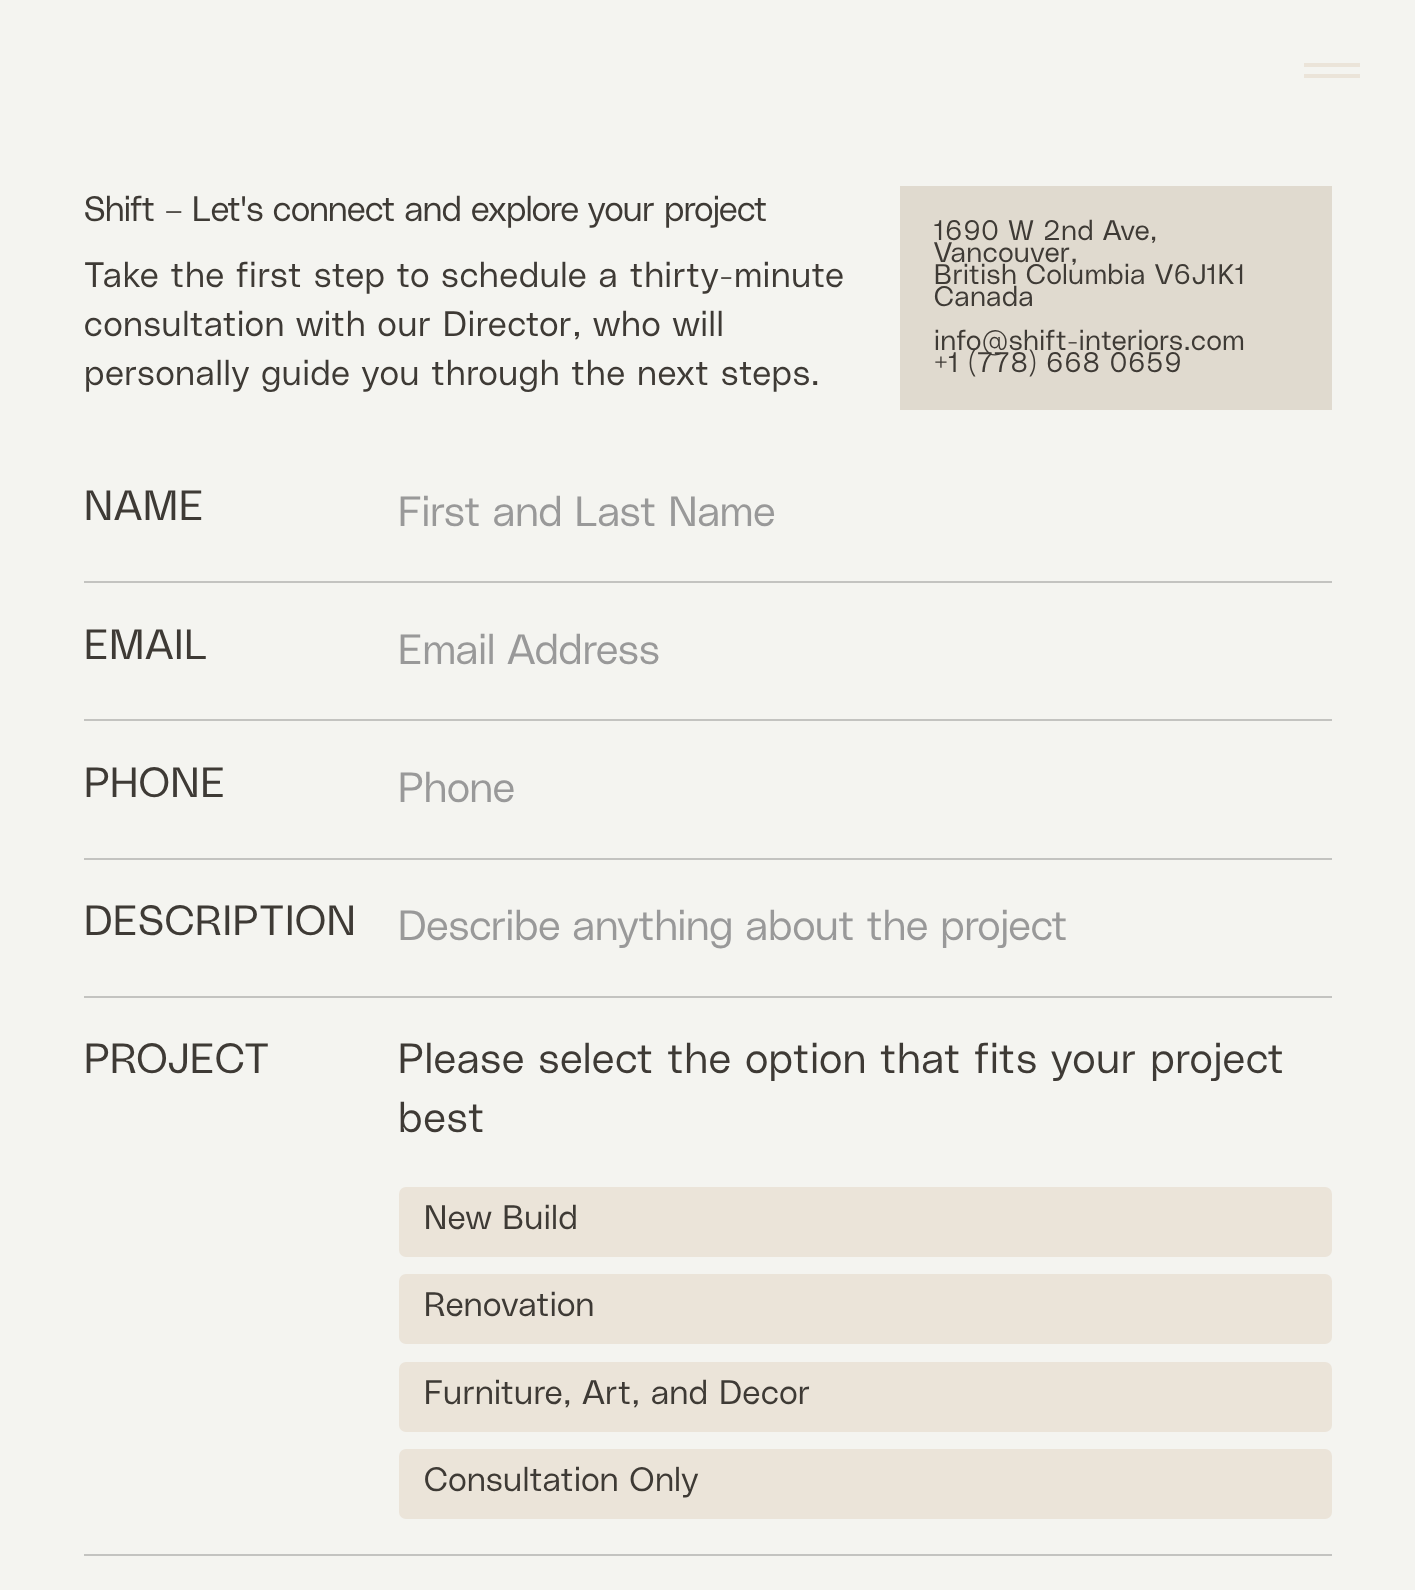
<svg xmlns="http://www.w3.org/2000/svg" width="1415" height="1590">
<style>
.a{font:300 35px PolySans;letter-spacing:-0.45px;fill:#3e3a35}
.b{font:300 35px PolySans;letter-spacing:1.05px;fill:#3e3a35}
.c{font:300 28px PolySans;letter-spacing:0.7px;fill:#3e3a35}
.d{font:300 42px PolySans;letter-spacing:1.05px;fill:#3e3a35}
.e{font:300 42px PolySans;fill:#999}
.f{font:300 33.6px PolySans;letter-spacing:0.7px;fill:#3e3a35}
</style>
<rect width="100%" height="100%" fill="#f4f4f0"/>
<path fill="#ebe4d9" d="M1304 63h56v4H1304z"/>
<path fill="#ebe4d9" d="M1304 74h56v4H1304z"/>
<path fill="#e0dacf" d="M900 186h432v224H900z"/>
<path fill="#c3c3c0" d="M84 581h1248v2H84z"/>
<path fill="#c3c3c0" d="M84 719h1248v2H84z"/>
<path fill="#c3c3c0" d="M84 858h1248v2H84z"/>
<path fill="#c3c3c0" d="M84 996h1248v2H84z"/>
<path fill="#c3c3c0" d="M84 1554h1248v2H84z"/>
<rect fill="#ebe4d9" x="399" y="1187" width="933" height="70" rx="7"/>
<rect fill="#ebe4d9" x="399" y="1274" width="933" height="70" rx="7"/>
<rect fill="#ebe4d9" x="399" y="1362" width="933" height="70" rx="7"/>
<rect fill="#ebe4d9" x="399" y="1449" width="933" height="70" rx="7"/>
<text class="a" x="84" y="221">Shift – Let's connect and explore your project</text>
<text class="b" x="84" y="287">Take the first step to schedule a thirty-minute</text>
<text class="b" x="84" y="336">consultation with our Director, who will</text>
<text class="b" x="84" y="385">personally guide you through the next steps.</text>
<text class="c" x="934" y="240">1690 W 2nd Ave,</text>
<text class="c" x="934" y="262">Vancouver,</text>
<text class="c" x="934" y="284">British Columbia V6J1K1</text>
<text class="c" x="934" y="306">Canada</text>
<text class="c" x="934" y="350">info@shift-interiors.com</text>
<text class="c" x="934" y="372">+1 (778) 668 0659</text>
<text class="d" x="84" y="520">NAME</text>
<text class="e" x="398" y="526">First and Last Name</text>
<text class="d" x="84" y="659">EMAIL</text>
<text class="e" x="398" y="664">Email Address</text>
<text class="d" x="84" y="797">PHONE</text>
<text class="e" x="398" y="802">Phone</text>
<text class="d" x="84" y="935">DESCRIPTION</text>
<text class="e" x="398" y="940">Describe anything about the project</text>
<text class="d" x="84" y="1073">PROJECT</text>
<text class="d" x="398" y="1073">Please select the option that fits your project</text>
<text class="d" x="398" y="1132">best</text>
<text class="f" x="424" y="1229">New Build</text>
<text class="f" x="424" y="1316">Renovation</text>
<text class="f" x="424" y="1404">Furniture, Art, and Decor</text>
<text class="f" x="424" y="1491">Consultation Only</text>
</svg>
